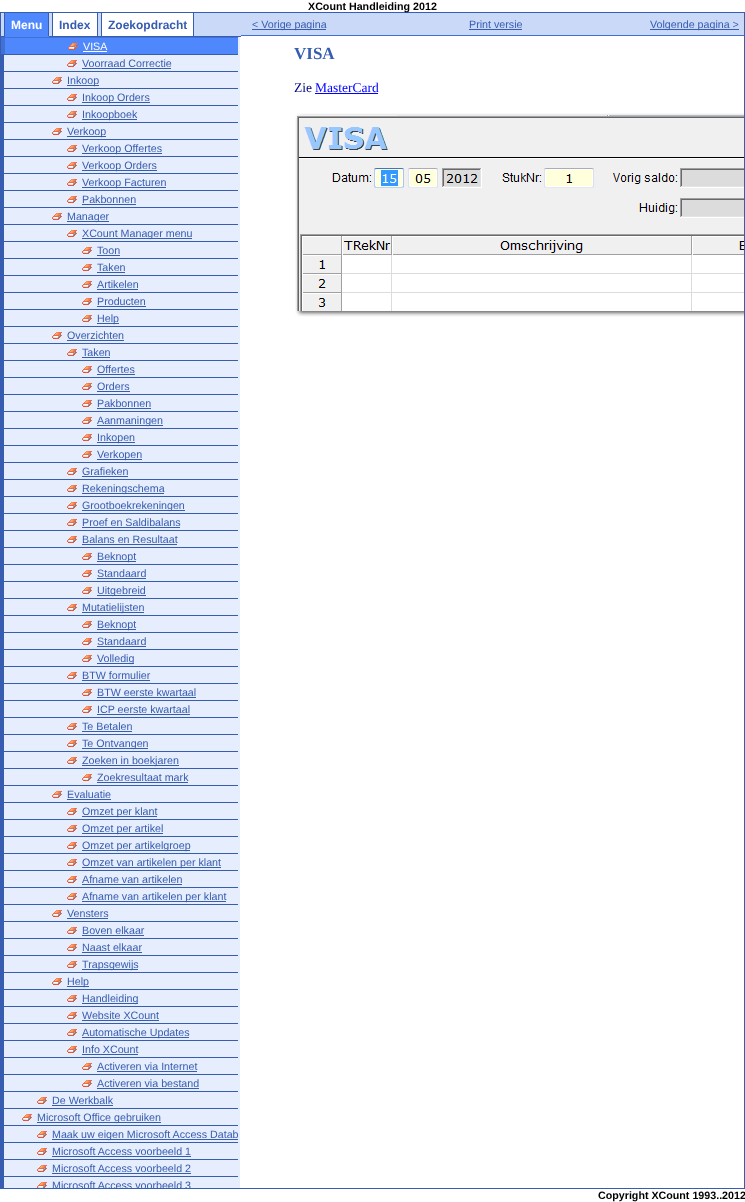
<svg xmlns="http://www.w3.org/2000/svg" width="745" height="1202">
<style>
.a{font:bold 10.7px Liberation Sans;fill:#000}
.b{font:bold 12px Liberation Sans;fill:#fff}
.c{font:bold 12px Liberation Sans;fill:#375db0}
.d{font:10.7px Liberation Sans;fill:#fff}
.e{font:10.7px Liberation Sans;fill:#375db0}
.f{font:bold 17px Liberation Serif;fill:#375db0}
.g{font:13.5px Liberation Serif;fill:#000080}
.h{font:13.5px Liberation Serif;fill:#00f}
</style>
<defs>
<clipPath id="clip1"><path d="M1 37h237v1151H1z"/></clipPath>
</defs>
<rect width="100%" height="100%" fill="#fff"/>
<path fill="#375db0" d="M0 12h745v1H0z"/>
<path fill="#375db0" d="M744 12h1v1177H744z"/>
<path fill="#375db0" d="M0 1188h745v1H0z"/>
<path fill="#375db0" d="M0 12h1v1177H0z"/>
<path fill="#cad9f8" d="M1 13h240v23H1z"/>
<path fill="#375db0" d="M1 36h240v1H1z"/>
<path fill="#4f87fd" d="M5 13h43v23H5z"/>
<path fill="#375db0" d="M48 12h1v25H48z"/>
<path fill="#4f87fd" d="M4 36h45v1H4z"/>
<path fill="#375db0" d="M4 12h1v25H4z"/>
<path fill="#fff" d="M53 13h44v23H53z"/>
<path fill="#375db0" d="M97 12h1v24H97z"/>
<path fill="#375db0" d="M52 12h1v24H52z"/>
<path fill="#fff" d="M102 13h91v23H102z"/>
<path fill="#375db0" d="M193 12h1v24H193z"/>
<path fill="#375db0" d="M101 12h1v24H101z"/>
<path fill="#4f87fd" d="M5 38h233v16H5z"/>
<path fill="#4271d6" d="M1 37h237v1H1z"/>
<path fill="#4271d6" d="M1 37h4v17H1z"/>
<image href="1.png" x="68" y="43" width="10" height="7"/>
<path fill="#fff" d="M83 51h24v1H83z"/>
<path fill="#e6edfc" d="M4 55h234v16H4z"/>
<path fill="#375db0" d="M1 54h237v1H1z"/>
<path fill="#375db0" d="M1 54h3v17H1z"/>
<image href="2.png" x="67" y="60" width="10" height="7"/>
<path fill="#375db0" d="M82 68h89v1H82z"/>
<path fill="#e6edfc" d="M4 72h234v16H4z"/>
<path fill="#375db0" d="M1 71h237v1H1z"/>
<path fill="#375db0" d="M1 71h3v17H1z"/>
<image href="2.png" x="52" y="77" width="10" height="7"/>
<path fill="#375db0" d="M67 85h32v1H67z"/>
<path fill="#e6edfc" d="M4 89h234v16H4z"/>
<path fill="#375db0" d="M1 88h237v1H1z"/>
<path fill="#375db0" d="M1 88h3v17H1z"/>
<image href="2.png" x="67" y="94" width="10" height="7"/>
<path fill="#375db0" d="M82 102h68v1H82z"/>
<path fill="#e6edfc" d="M4 106h234v16H4z"/>
<path fill="#375db0" d="M1 105h237v1H1z"/>
<path fill="#375db0" d="M1 105h3v17H1z"/>
<image href="2.png" x="67" y="111" width="10" height="7"/>
<path fill="#375db0" d="M82 119h55v1H82z"/>
<path fill="#e6edfc" d="M4 123h234v16H4z"/>
<path fill="#375db0" d="M1 122h237v1H1z"/>
<path fill="#375db0" d="M1 122h3v17H1z"/>
<image href="2.png" x="52" y="128" width="10" height="7"/>
<path fill="#375db0" d="M67 136h39v1H67z"/>
<path fill="#e6edfc" d="M4 140h234v16H4z"/>
<path fill="#375db0" d="M1 139h237v1H1z"/>
<path fill="#375db0" d="M1 139h3v17H1z"/>
<image href="2.png" x="67" y="145" width="10" height="7"/>
<path fill="#375db0" d="M82 153h80v1H82z"/>
<path fill="#e6edfc" d="M4 157h234v16H4z"/>
<path fill="#375db0" d="M1 156h237v1H1z"/>
<path fill="#375db0" d="M1 156h3v17H1z"/>
<image href="2.png" x="67" y="162" width="10" height="7"/>
<path fill="#375db0" d="M82 170h75v1H82z"/>
<path fill="#e6edfc" d="M4 174h234v16H4z"/>
<path fill="#375db0" d="M1 173h237v1H1z"/>
<path fill="#375db0" d="M1 173h3v17H1z"/>
<image href="2.png" x="67" y="179" width="10" height="7"/>
<path fill="#375db0" d="M82 187h84v1H82z"/>
<path fill="#e6edfc" d="M4 191h234v16H4z"/>
<path fill="#375db0" d="M1 190h237v1H1z"/>
<path fill="#375db0" d="M1 190h3v17H1z"/>
<image href="2.png" x="67" y="196" width="10" height="7"/>
<path fill="#375db0" d="M82 204h54v1H82z"/>
<path fill="#e6edfc" d="M4 208h234v16H4z"/>
<path fill="#375db0" d="M1 207h237v1H1z"/>
<path fill="#375db0" d="M1 207h3v17H1z"/>
<image href="2.png" x="52" y="213" width="10" height="7"/>
<path fill="#375db0" d="M67 221h42v1H67z"/>
<path fill="#e6edfc" d="M4 225h234v16H4z"/>
<path fill="#375db0" d="M1 224h237v1H1z"/>
<path fill="#375db0" d="M1 224h3v17H1z"/>
<image href="2.png" x="67" y="230" width="10" height="7"/>
<path fill="#375db0" d="M82 238h110v1H82z"/>
<path fill="#e6edfc" d="M4 242h234v16H4z"/>
<path fill="#375db0" d="M1 241h237v1H1z"/>
<path fill="#375db0" d="M1 241h3v17H1z"/>
<image href="2.png" x="82" y="247" width="10" height="7"/>
<path fill="#375db0" d="M97 255h23v1H97z"/>
<path fill="#e6edfc" d="M4 259h234v16H4z"/>
<path fill="#375db0" d="M1 258h237v1H1z"/>
<path fill="#375db0" d="M1 258h3v17H1z"/>
<image href="2.png" x="82" y="264" width="10" height="7"/>
<path fill="#375db0" d="M97 272h28v1H97z"/>
<path fill="#e6edfc" d="M4 276h234v16H4z"/>
<path fill="#375db0" d="M1 275h237v1H1z"/>
<path fill="#375db0" d="M1 275h3v17H1z"/>
<image href="2.png" x="82" y="281" width="10" height="7"/>
<path fill="#375db0" d="M97 289h41v1H97z"/>
<path fill="#e6edfc" d="M4 293h234v16H4z"/>
<path fill="#375db0" d="M1 292h237v1H1z"/>
<path fill="#375db0" d="M1 292h3v17H1z"/>
<image href="2.png" x="82" y="298" width="10" height="7"/>
<path fill="#375db0" d="M97 306h49v1H97z"/>
<path fill="#e6edfc" d="M4 310h234v16H4z"/>
<path fill="#375db0" d="M1 309h237v1H1z"/>
<path fill="#375db0" d="M1 309h3v17H1z"/>
<image href="2.png" x="82" y="315" width="10" height="7"/>
<path fill="#375db0" d="M97 323h22v1H97z"/>
<path fill="#e6edfc" d="M4 327h234v16H4z"/>
<path fill="#375db0" d="M1 326h237v1H1z"/>
<path fill="#375db0" d="M1 326h3v17H1z"/>
<image href="2.png" x="52" y="332" width="10" height="7"/>
<path fill="#375db0" d="M67 340h57v1H67z"/>
<path fill="#e6edfc" d="M4 344h234v16H4z"/>
<path fill="#375db0" d="M1 343h237v1H1z"/>
<path fill="#375db0" d="M1 343h3v17H1z"/>
<image href="2.png" x="67" y="349" width="10" height="7"/>
<path fill="#375db0" d="M82 357h28v1H82z"/>
<path fill="#e6edfc" d="M4 361h234v16H4z"/>
<path fill="#375db0" d="M1 360h237v1H1z"/>
<path fill="#375db0" d="M1 360h3v17H1z"/>
<image href="2.png" x="82" y="366" width="10" height="7"/>
<path fill="#375db0" d="M97 374h38v1H97z"/>
<path fill="#e6edfc" d="M4 378h234v16H4z"/>
<path fill="#375db0" d="M1 377h237v1H1z"/>
<path fill="#375db0" d="M1 377h3v17H1z"/>
<image href="2.png" x="82" y="383" width="10" height="7"/>
<path fill="#375db0" d="M97 391h33v1H97z"/>
<path fill="#e6edfc" d="M4 395h234v16H4z"/>
<path fill="#375db0" d="M1 394h237v1H1z"/>
<path fill="#375db0" d="M1 394h3v17H1z"/>
<image href="2.png" x="82" y="400" width="10" height="7"/>
<path fill="#375db0" d="M97 408h54v1H97z"/>
<path fill="#e6edfc" d="M4 412h234v16H4z"/>
<path fill="#375db0" d="M1 411h237v1H1z"/>
<path fill="#375db0" d="M1 411h3v17H1z"/>
<image href="2.png" x="82" y="417" width="10" height="7"/>
<path fill="#375db0" d="M97 425h66v1H97z"/>
<path fill="#e6edfc" d="M4 429h234v16H4z"/>
<path fill="#375db0" d="M1 428h237v1H1z"/>
<path fill="#375db0" d="M1 428h3v17H1z"/>
<image href="2.png" x="82" y="434" width="10" height="7"/>
<path fill="#375db0" d="M97 442h38v1H97z"/>
<path fill="#e6edfc" d="M4 446h234v16H4z"/>
<path fill="#375db0" d="M1 445h237v1H1z"/>
<path fill="#375db0" d="M1 445h3v17H1z"/>
<image href="2.png" x="82" y="451" width="10" height="7"/>
<path fill="#375db0" d="M97 459h45v1H97z"/>
<path fill="#e6edfc" d="M4 463h234v16H4z"/>
<path fill="#375db0" d="M1 462h237v1H1z"/>
<path fill="#375db0" d="M1 462h3v17H1z"/>
<image href="2.png" x="67" y="468" width="10" height="7"/>
<path fill="#375db0" d="M82 476h46v1H82z"/>
<path fill="#e6edfc" d="M4 480h234v16H4z"/>
<path fill="#375db0" d="M1 479h237v1H1z"/>
<path fill="#375db0" d="M1 479h3v17H1z"/>
<image href="2.png" x="67" y="485" width="10" height="7"/>
<path fill="#375db0" d="M82 493h82v1H82z"/>
<path fill="#e6edfc" d="M4 497h234v16H4z"/>
<path fill="#375db0" d="M1 496h237v1H1z"/>
<path fill="#375db0" d="M1 496h3v17H1z"/>
<image href="2.png" x="67" y="502" width="10" height="7"/>
<path fill="#375db0" d="M82 510h103v1H82z"/>
<path fill="#e6edfc" d="M4 514h234v16H4z"/>
<path fill="#375db0" d="M1 513h237v1H1z"/>
<path fill="#375db0" d="M1 513h3v17H1z"/>
<image href="2.png" x="67" y="519" width="10" height="7"/>
<path fill="#375db0" d="M82 527h98v1H82z"/>
<path fill="#e6edfc" d="M4 531h234v16H4z"/>
<path fill="#375db0" d="M1 530h237v1H1z"/>
<path fill="#375db0" d="M1 530h3v17H1z"/>
<image href="2.png" x="67" y="536" width="10" height="7"/>
<path fill="#375db0" d="M82 544h95v1H82z"/>
<path fill="#e6edfc" d="M4 548h234v16H4z"/>
<path fill="#375db0" d="M1 547h237v1H1z"/>
<path fill="#375db0" d="M1 547h3v17H1z"/>
<image href="2.png" x="82" y="553" width="10" height="7"/>
<path fill="#375db0" d="M97 561h39v1H97z"/>
<path fill="#e6edfc" d="M4 565h234v16H4z"/>
<path fill="#375db0" d="M1 564h237v1H1z"/>
<path fill="#375db0" d="M1 564h3v17H1z"/>
<image href="2.png" x="82" y="570" width="10" height="7"/>
<path fill="#375db0" d="M97 578h49v1H97z"/>
<path fill="#e6edfc" d="M4 582h234v16H4z"/>
<path fill="#375db0" d="M1 581h237v1H1z"/>
<path fill="#375db0" d="M1 581h3v17H1z"/>
<image href="2.png" x="82" y="587" width="10" height="7"/>
<path fill="#375db0" d="M97 595h49v1H97z"/>
<path fill="#e6edfc" d="M4 599h234v16H4z"/>
<path fill="#375db0" d="M1 598h237v1H1z"/>
<path fill="#375db0" d="M1 598h3v17H1z"/>
<image href="2.png" x="67" y="604" width="10" height="7"/>
<path fill="#375db0" d="M82 612h62v1H82z"/>
<path fill="#e6edfc" d="M4 616h234v16H4z"/>
<path fill="#375db0" d="M1 615h237v1H1z"/>
<path fill="#375db0" d="M1 615h3v17H1z"/>
<image href="2.png" x="82" y="621" width="10" height="7"/>
<path fill="#375db0" d="M97 629h39v1H97z"/>
<path fill="#e6edfc" d="M4 633h234v16H4z"/>
<path fill="#375db0" d="M1 632h237v1H1z"/>
<path fill="#375db0" d="M1 632h3v17H1z"/>
<image href="2.png" x="82" y="638" width="10" height="7"/>
<path fill="#375db0" d="M97 646h49v1H97z"/>
<path fill="#e6edfc" d="M4 650h234v16H4z"/>
<path fill="#375db0" d="M1 649h237v1H1z"/>
<path fill="#375db0" d="M1 649h3v17H1z"/>
<image href="2.png" x="82" y="655" width="10" height="7"/>
<path fill="#375db0" d="M97 663h37v1H97z"/>
<path fill="#e6edfc" d="M4 667h234v16H4z"/>
<path fill="#375db0" d="M1 666h237v1H1z"/>
<path fill="#375db0" d="M1 666h3v17H1z"/>
<image href="2.png" x="67" y="672" width="10" height="7"/>
<path fill="#375db0" d="M82 680h68v1H82z"/>
<path fill="#e6edfc" d="M4 684h234v16H4z"/>
<path fill="#375db0" d="M1 683h237v1H1z"/>
<path fill="#375db0" d="M1 683h3v17H1z"/>
<image href="2.png" x="82" y="689" width="10" height="7"/>
<path fill="#375db0" d="M97 697h99v1H97z"/>
<path fill="#e6edfc" d="M4 701h234v16H4z"/>
<path fill="#375db0" d="M1 700h237v1H1z"/>
<path fill="#375db0" d="M1 700h3v17H1z"/>
<image href="2.png" x="82" y="706" width="10" height="7"/>
<path fill="#375db0" d="M97 714h93v1H97z"/>
<path fill="#e6edfc" d="M4 718h234v16H4z"/>
<path fill="#375db0" d="M1 717h237v1H1z"/>
<path fill="#375db0" d="M1 717h3v17H1z"/>
<image href="2.png" x="67" y="723" width="10" height="7"/>
<path fill="#375db0" d="M82 731h50v1H82z"/>
<path fill="#e6edfc" d="M4 735h234v16H4z"/>
<path fill="#375db0" d="M1 734h237v1H1z"/>
<path fill="#375db0" d="M1 734h3v17H1z"/>
<image href="2.png" x="67" y="740" width="10" height="7"/>
<path fill="#375db0" d="M82 748h66v1H82z"/>
<path fill="#e6edfc" d="M4 752h234v16H4z"/>
<path fill="#375db0" d="M1 751h237v1H1z"/>
<path fill="#375db0" d="M1 751h3v17H1z"/>
<image href="2.png" x="67" y="757" width="10" height="7"/>
<path fill="#375db0" d="M82 765h97v1H82z"/>
<path fill="#e6edfc" d="M4 769h234v16H4z"/>
<path fill="#375db0" d="M1 768h237v1H1z"/>
<path fill="#375db0" d="M1 768h3v17H1z"/>
<image href="2.png" x="82" y="774" width="10" height="7"/>
<path fill="#375db0" d="M97 782h91v1H97z"/>
<path fill="#e6edfc" d="M4 786h234v16H4z"/>
<path fill="#375db0" d="M1 785h237v1H1z"/>
<path fill="#375db0" d="M1 785h3v17H1z"/>
<image href="2.png" x="52" y="791" width="10" height="7"/>
<path fill="#375db0" d="M67 799h44v1H67z"/>
<path fill="#e6edfc" d="M4 803h234v16H4z"/>
<path fill="#375db0" d="M1 802h237v1H1z"/>
<path fill="#375db0" d="M1 802h3v17H1z"/>
<image href="2.png" x="67" y="808" width="10" height="7"/>
<path fill="#375db0" d="M82 816h75v1H82z"/>
<path fill="#e6edfc" d="M4 820h234v16H4z"/>
<path fill="#375db0" d="M1 819h237v1H1z"/>
<path fill="#375db0" d="M1 819h3v17H1z"/>
<image href="2.png" x="67" y="825" width="10" height="7"/>
<path fill="#375db0" d="M82 833h81v1H82z"/>
<path fill="#e6edfc" d="M4 837h234v16H4z"/>
<path fill="#375db0" d="M1 836h237v1H1z"/>
<path fill="#375db0" d="M1 836h3v17H1z"/>
<image href="2.png" x="67" y="842" width="10" height="7"/>
<path fill="#375db0" d="M82 850h108v1H82z"/>
<path fill="#e6edfc" d="M4 854h234v16H4z"/>
<path fill="#375db0" d="M1 853h237v1H1z"/>
<path fill="#375db0" d="M1 853h3v17H1z"/>
<image href="2.png" x="67" y="859" width="10" height="7"/>
<path fill="#375db0" d="M82 867h139v1H82z"/>
<path fill="#e6edfc" d="M4 871h234v16H4z"/>
<path fill="#375db0" d="M1 870h237v1H1z"/>
<path fill="#375db0" d="M1 870h3v17H1z"/>
<image href="2.png" x="67" y="876" width="10" height="7"/>
<path fill="#375db0" d="M82 884h100v1H82z"/>
<path fill="#e6edfc" d="M4 888h234v16H4z"/>
<path fill="#375db0" d="M1 887h237v1H1z"/>
<path fill="#375db0" d="M1 887h3v17H1z"/>
<image href="2.png" x="67" y="893" width="10" height="7"/>
<path fill="#375db0" d="M82 901h144v1H82z"/>
<path fill="#e6edfc" d="M4 905h234v16H4z"/>
<path fill="#375db0" d="M1 904h237v1H1z"/>
<path fill="#375db0" d="M1 904h3v17H1z"/>
<image href="2.png" x="52" y="910" width="10" height="7"/>
<path fill="#375db0" d="M67 918h41v1H67z"/>
<path fill="#e6edfc" d="M4 922h234v16H4z"/>
<path fill="#375db0" d="M1 921h237v1H1z"/>
<path fill="#375db0" d="M1 921h3v17H1z"/>
<image href="2.png" x="67" y="927" width="10" height="7"/>
<path fill="#375db0" d="M82 935h62v1H82z"/>
<path fill="#e6edfc" d="M4 939h234v16H4z"/>
<path fill="#375db0" d="M1 938h237v1H1z"/>
<path fill="#375db0" d="M1 938h3v17H1z"/>
<image href="2.png" x="67" y="944" width="10" height="7"/>
<path fill="#375db0" d="M82 952h60v1H82z"/>
<path fill="#e6edfc" d="M4 956h234v16H4z"/>
<path fill="#375db0" d="M1 955h237v1H1z"/>
<path fill="#375db0" d="M1 955h3v17H1z"/>
<image href="2.png" x="67" y="961" width="10" height="7"/>
<path fill="#375db0" d="M82 969h56v1H82z"/>
<path fill="#e6edfc" d="M4 973h234v16H4z"/>
<path fill="#375db0" d="M1 972h237v1H1z"/>
<path fill="#375db0" d="M1 972h3v17H1z"/>
<image href="2.png" x="52" y="978" width="10" height="7"/>
<path fill="#375db0" d="M67 986h22v1H67z"/>
<path fill="#e6edfc" d="M4 990h234v16H4z"/>
<path fill="#375db0" d="M1 989h237v1H1z"/>
<path fill="#375db0" d="M1 989h3v17H1z"/>
<image href="2.png" x="67" y="995" width="10" height="7"/>
<path fill="#375db0" d="M82 1003h56v1H82z"/>
<path fill="#e6edfc" d="M4 1007h234v16H4z"/>
<path fill="#375db0" d="M1 1006h237v1H1z"/>
<path fill="#375db0" d="M1 1006h3v17H1z"/>
<image href="2.png" x="67" y="1012" width="10" height="7"/>
<path fill="#375db0" d="M82 1020h77v1H82z"/>
<path fill="#e6edfc" d="M4 1024h234v16H4z"/>
<path fill="#375db0" d="M1 1023h237v1H1z"/>
<path fill="#375db0" d="M1 1023h3v17H1z"/>
<image href="2.png" x="67" y="1029" width="10" height="7"/>
<path fill="#375db0" d="M82 1037h107v1H82z"/>
<path fill="#e6edfc" d="M4 1041h234v16H4z"/>
<path fill="#375db0" d="M1 1040h237v1H1z"/>
<path fill="#375db0" d="M1 1040h3v17H1z"/>
<image href="2.png" x="67" y="1046" width="10" height="7"/>
<path fill="#375db0" d="M82 1054h56v1H82z"/>
<path fill="#e6edfc" d="M4 1058h234v16H4z"/>
<path fill="#375db0" d="M1 1057h237v1H1z"/>
<path fill="#375db0" d="M1 1057h3v17H1z"/>
<image href="2.png" x="82" y="1063" width="10" height="7"/>
<path fill="#375db0" d="M97 1071h100v1H97z"/>
<path fill="#e6edfc" d="M4 1075h234v16H4z"/>
<path fill="#375db0" d="M1 1074h237v1H1z"/>
<path fill="#375db0" d="M1 1074h3v17H1z"/>
<image href="2.png" x="82" y="1080" width="10" height="7"/>
<path fill="#375db0" d="M97 1088h102v1H97z"/>
<path fill="#e6edfc" d="M4 1092h234v16H4z"/>
<path fill="#375db0" d="M1 1091h237v1H1z"/>
<path fill="#375db0" d="M1 1091h3v17H1z"/>
<image href="2.png" x="37" y="1097" width="10" height="7"/>
<path fill="#375db0" d="M52 1105h61v1H52z"/>
<path fill="#e6edfc" d="M4 1109h234v16H4z"/>
<path fill="#375db0" d="M1 1108h237v1H1z"/>
<path fill="#375db0" d="M1 1108h3v17H1z"/>
<image href="2.png" x="22" y="1114" width="10" height="7"/>
<path fill="#375db0" d="M37 1122h124v1H37z"/>
<path fill="#e6edfc" d="M4 1126h234v16H4z"/>
<path fill="#375db0" d="M1 1125h237v1H1z"/>
<path fill="#375db0" d="M1 1125h3v17H1z"/>
<image href="2.png" x="37" y="1131" width="10" height="7"/>
<path fill="#375db0" d="M52 1139h186v1H52z"/>
<path fill="#e6edfc" d="M4 1143h234v16H4z"/>
<path fill="#375db0" d="M1 1142h237v1H1z"/>
<path fill="#375db0" d="M1 1142h3v17H1z"/>
<image href="2.png" x="37" y="1148" width="10" height="7"/>
<path fill="#375db0" d="M52 1156h139v1H52z"/>
<path fill="#e6edfc" d="M4 1160h234v16H4z"/>
<path fill="#375db0" d="M1 1159h237v1H1z"/>
<path fill="#375db0" d="M1 1159h3v17H1z"/>
<image href="2.png" x="37" y="1165" width="10" height="7"/>
<path fill="#375db0" d="M52 1173h139v1H52z"/>
<path fill="#e6edfc" d="M4 1177h234v11H4z"/>
<path fill="#375db0" d="M1 1176h237v1H1z"/>
<path fill="#375db0" d="M1 1176h3v12H1z"/>
<image href="3.png" x="37" y="1182" width="10" height="6"/>
<path fill="#e6edfc" d="M238 37h2v1151H238z"/>
<path fill="#cad9f8" d="M241 13h503v22H241z"/>
<path fill="#4271d6" d="M241 35h503v1H241z"/>
<path fill="#375db0" d="M252 29h74v1H252z"/>
<path fill="#375db0" d="M469 29h53v1H469z"/>
<path fill="#375db0" d="M650 29h89v1H650z"/>
<path fill="#00f" d="M315 93h63v1H315z"/>
<image href="4.png" x="295" y="113" width="449" height="204"/>
<text class="a" x="308" y="10">XCount Handleiding 2012</text>
<text class="b" x="11" y="29">Menu</text>
<text class="c" x="59" y="29">Index</text>
<text class="c" x="108" y="29">Zoekopdracht</text>
<text class="d" x="83" y="50">VISA</text>
<text class="e" x="82" y="67">Voorraad Correctie</text>
<text class="e" x="67" y="84">Inkoop</text>
<text class="e" x="82" y="101">Inkoop Orders</text>
<text class="e" x="82" y="118">Inkoopboek</text>
<text class="e" x="67" y="135">Verkoop</text>
<text class="e" x="82" y="152">Verkoop Offertes</text>
<text class="e" x="82" y="169">Verkoop Orders</text>
<text class="e" x="82" y="186">Verkoop Facturen</text>
<text class="e" x="82" y="203">Pakbonnen</text>
<text class="e" x="67" y="220">Manager</text>
<text class="e" x="82" y="237">XCount Manager menu</text>
<text class="e" x="97" y="254">Toon</text>
<text class="e" x="97" y="271">Taken</text>
<text class="e" x="97" y="288">Artikelen</text>
<text class="e" x="97" y="305">Producten</text>
<text class="e" x="97" y="322">Help</text>
<text class="e" x="67" y="339">Overzichten</text>
<text class="e" x="82" y="356">Taken</text>
<text class="e" x="97" y="373">Offertes</text>
<text class="e" x="97" y="390">Orders</text>
<text class="e" x="97" y="407">Pakbonnen</text>
<text class="e" x="97" y="424">Aanmaningen</text>
<text class="e" x="97" y="441">Inkopen</text>
<text class="e" x="97" y="458">Verkopen</text>
<text class="e" x="82" y="475">Grafieken</text>
<text class="e" x="82" y="492">Rekeningschema</text>
<text class="e" x="82" y="509">Grootboekrekeningen</text>
<text class="e" x="82" y="526">Proef en Saldibalans</text>
<text class="e" x="82" y="543">Balans en Resultaat</text>
<text class="e" x="97" y="560">Beknopt</text>
<text class="e" x="97" y="577">Standaard</text>
<text class="e" x="97" y="594">Uitgebreid</text>
<text class="e" x="82" y="611">Mutatielijsten</text>
<text class="e" x="97" y="628">Beknopt</text>
<text class="e" x="97" y="645">Standaard</text>
<text class="e" x="97" y="662">Volledig</text>
<text class="e" x="82" y="679">BTW formulier</text>
<text class="e" x="97" y="696">BTW eerste kwartaal</text>
<text class="e" x="97" y="713">ICP eerste kwartaal</text>
<text class="e" x="82" y="730">Te Betalen</text>
<text class="e" x="82" y="747">Te Ontvangen</text>
<text class="e" x="82" y="764">Zoeken in boekjaren</text>
<text class="e" x="97" y="781">Zoekresultaat mark</text>
<text class="e" x="67" y="798">Evaluatie</text>
<text class="e" x="82" y="815">Omzet per klant</text>
<text class="e" x="82" y="832">Omzet per artikel</text>
<text class="e" x="82" y="849">Omzet per artikelgroep</text>
<text class="e" x="82" y="866">Omzet van artikelen per klant</text>
<text class="e" x="82" y="883">Afname van artikelen</text>
<text class="e" x="82" y="900">Afname van artikelen per klant</text>
<text class="e" x="67" y="917">Vensters</text>
<text class="e" x="82" y="934">Boven elkaar</text>
<text class="e" x="82" y="951">Naast elkaar</text>
<text class="e" x="82" y="968">Trapsgewijs</text>
<text class="e" x="67" y="985">Help</text>
<text class="e" x="82" y="1002">Handleiding</text>
<text class="e" x="82" y="1019">Website XCount</text>
<text class="e" x="82" y="1036">Automatische Updates</text>
<text class="e" x="82" y="1053">Info XCount</text>
<text class="e" x="97" y="1070">Activeren via Internet</text>
<text class="e" x="97" y="1087">Activeren via bestand</text>
<text class="e" x="52" y="1104">De Werkbalk</text>
<text class="e" x="37" y="1121">Microsoft Office gebruiken</text>
<text class="e" x="52" y="1138">Maak uw eigen Microsoft Access Datab</text>
<text class="e" x="52" y="1155">Microsoft Access voorbeeld 1</text>
<text class="e" x="52" y="1172">Microsoft Access voorbeeld 2</text>
<g clip-path="url(#clip1)">
<text class="e" x="52" y="1189">Microsoft Access voorbeeld 3</text>
</g>
<text class="e" x="252" y="28">&lt; Vorige pagina</text>
<text class="e" x="469" y="28">Print versie</text>
<text class="e" x="650" y="28">Volgende pagina &gt;</text>
<text class="f" x="294" y="59">VISA</text>
<text class="g" x="294" y="92">Zie</text>
<text class="h" x="315" y="92">MasterCard</text>
<text class="a" x="598" y="1199">Copyright XCount 1993..2012</text>
</svg>
